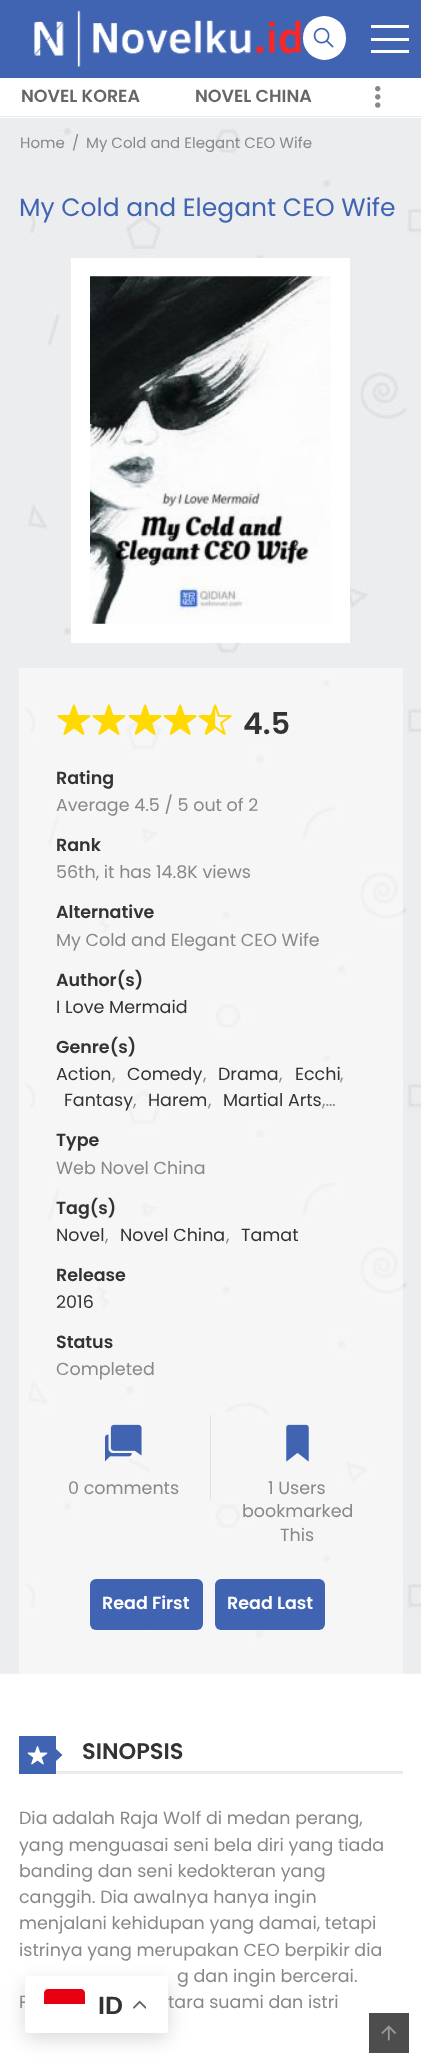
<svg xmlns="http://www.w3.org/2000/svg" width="421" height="2064">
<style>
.a{font:600 17.5px Poppins;fill:#666}
.b{font:15px Poppins;fill:#888}
.c{font:25px Poppins;fill:#4164b2}
.d{font:600 30px Poppins;fill:#333}
.e{font:600 17.5px Poppins;fill:#333}
.f{font:17.5px Poppins;fill:#888}
.g{font:17.5px Poppins;fill:#333}
.h{font:600 17.5px Poppins;fill:#fff}
.i{font:600 22.5px Poppins;fill:#333}
.j{font:bold 25px Liberation Sans;fill:#333}
</style>
<rect width="100%" height="100%" fill="#fff"/>
<path fill="#4164b2" d="M0 0h421v78H0z"/>
<image href="1.png" x="33" y="10" width="269" height="57"/>
<rect fill="#fff" x="303" y="16" width="43" height="44" rx="21.5"/>
<image href="2.png" x="313" y="27" width="21" height="21"/>
<path fill="#fff" d="M371 25h38v3H371z"/>
<path fill="#fff" d="M371 38h38v3H371z"/>
<path fill="#fff" d="M371 50h38v3H371z"/>
<path fill="#ebebeb" d="M0 116h421v1H0z"/>
<image href="3.png" x="375" y="86" width="6" height="22"/>
<image href="4.png" x="0" y="118" width="421" height="1556"/>
<path fill="#fff" d="M71 258h279v385H71z"/>
<image href="5.png" x="90" y="276" width="241" height="348"/>
<path fill="#ffffff80" d="M19 668h384v1006H19z"/>
<image href="6.png" x="57" y="704" width="34" height="31"/>
<image href="7.png" x="92" y="704" width="34" height="31"/>
<image href="8.png" x="128" y="704" width="34" height="31"/>
<image href="9.png" x="163" y="704" width="34" height="31"/>
<image href="10.png" x="198" y="704" width="34" height="31"/>
<path fill="#e1e1e1" d="M210 1415h1v85H210z"/>
<image href="11.png" x="105" y="1424" width="37" height="38"/>
<image href="12.png" x="286" y="1424" width="23" height="38"/>
<rect fill="#4164b2" x="90" y="1579" width="113" height="51" rx="6"/>
<rect fill="#4164b2" x="215" y="1579" width="110" height="51" rx="6"/>
<path fill="#ebebeb" d="M56 1771h347v3H56z"/>
<path fill="#4164b2" d="M19 1736h37v38H19z"/>
<image href="13.png" x="27" y="1746" width="21" height="19"/>
<path fill="#4164b2" d="M56 1761v-12l6.5 6z"/>
<rect fill="#00000026" filter="blur(9.5px)" x="25" y="1983" width="143" height="56" rx="2.5"/>
<path fill="#4d4d4d" d="M369 2013h40v40H369z"/>
<image href="15.png" x="381" y="2025" width="16" height="16"/>
<text class="a" x="21" y="102">NOVEL KOREA</text>
<text class="a" x="195" y="102">NOVEL CHINA</text>
<text class="b" x="20" y="148">Home</text>
<text class="b" x="72" y="148">/</text>
<text class="b" x="86" y="148">My Cold and Elegant CEO Wife</text>
<text class="c" x="19" y="216">My Cold and Elegant CEO Wife</text>
<text class="d" x="243" y="734">4.5</text>
<text class="e" x="56" y="784">Rating</text>
<text class="f" x="56" y="811">Average 4.5 / 5 out of 2</text>
<text class="e" x="56" y="851">Rank</text>
<text class="f" x="56" y="878">56th, it has 14.8K views</text>
<text class="e" x="56" y="918">Alternative</text>
<text class="f" x="56" y="946">My Cold and Elegant CEO Wife</text>
<text class="e" x="56" y="986">Author(s)</text>
<text class="g" x="56" y="1013">I Love Mermaid</text>
<text class="e" x="56" y="1053">Genre(s)</text>
<text class="g" x="56" y="1080">Action</text>
<text class="f" x="112" y="1080">,</text>
<text class="g" x="127" y="1080">Comedy</text>
<text class="f" x="203" y="1080">,</text>
<text class="g" x="218" y="1080">Drama</text>
<text class="f" x="279" y="1080">,</text>
<text class="g" x="295" y="1080">Ecchi</text>
<text class="f" x="340" y="1080">,</text>
<text class="g" x="64" y="1106">Fantasy</text>
<text class="f" x="133" y="1106">,</text>
<text class="g" x="148" y="1106">Harem</text>
<text class="f" x="208" y="1106">,</text>
<text class="g" x="223" y="1106">Martial Arts</text>
<text class="f" x="322" y="1106">,…</text>
<text class="e" x="56" y="1146">Type</text>
<text class="f" x="56" y="1174">Web Novel China</text>
<text class="e" x="56" y="1214">Tag(s)</text>
<text class="g" x="56" y="1241">Novel</text>
<text class="f" x="105" y="1241">,</text>
<text class="g" x="120" y="1241">Novel China</text>
<text class="f" x="226" y="1241">,</text>
<text class="g" x="241" y="1241">Tamat</text>
<text class="e" x="56" y="1281">Release</text>
<text class="g" x="56" y="1308">2016</text>
<text class="e" x="56" y="1348">Status</text>
<text class="f" x="56" y="1375">Completed</text>
<text class="f" x="68" y="1494">0 comments</text>
<text class="f" x="268" y="1494">1 Users</text>
<text class="f" x="242" y="1517">bookmarked</text>
<text class="f" x="280" y="1541">This</text>
<text class="h" x="102" y="1609">Read First</text>
<text class="h" x="227" y="1609">Read Last</text>
<text class="i" x="82" y="1759">SINOPSIS</text>
<text class="f" x="19" y="1824">Dia adalah Raja Wolf di medan perang,</text>
<text class="f" x="19" y="1851">yang menguasai seni bela diri yang tiada</text>
<text class="f" x="19" y="1877">banding dan seni kedokteran yang</text>
<text class="f" x="19" y="1903">canggih. Dia awalnya hanya ingin</text>
<text class="f" x="19" y="1929">menjalani kehidupan yang damai, tetapi</text>
<text class="f" x="19" y="1956">istrinya yang merupakan CEO berpikir dia</text>
<text class="f" x="177" y="1982">g dan ingin bercerai.</text>
<text class="f" x="19" y="2008">P</text>
<text class="f" x="168" y="2008">tara suami dan istri</text>
<rect fill="#fff" x="25" y="1976" width="143" height="57" rx="2.5"/>
<path fill="#e70011" d="M48 1989h33c2 0 4 2 4 4v12h-41v-12c0-2 2-4 4-4z"/>
<path fill="#fff" d="M44 2004h41v12c0 2-2 4-4 4h-33c-2 0-4-2-4-4z"/>
<text class="j" x="98" y="2014">ID</text>
<image href="14.png" x="133" y="2000" width="13" height="9"/>
</svg>
